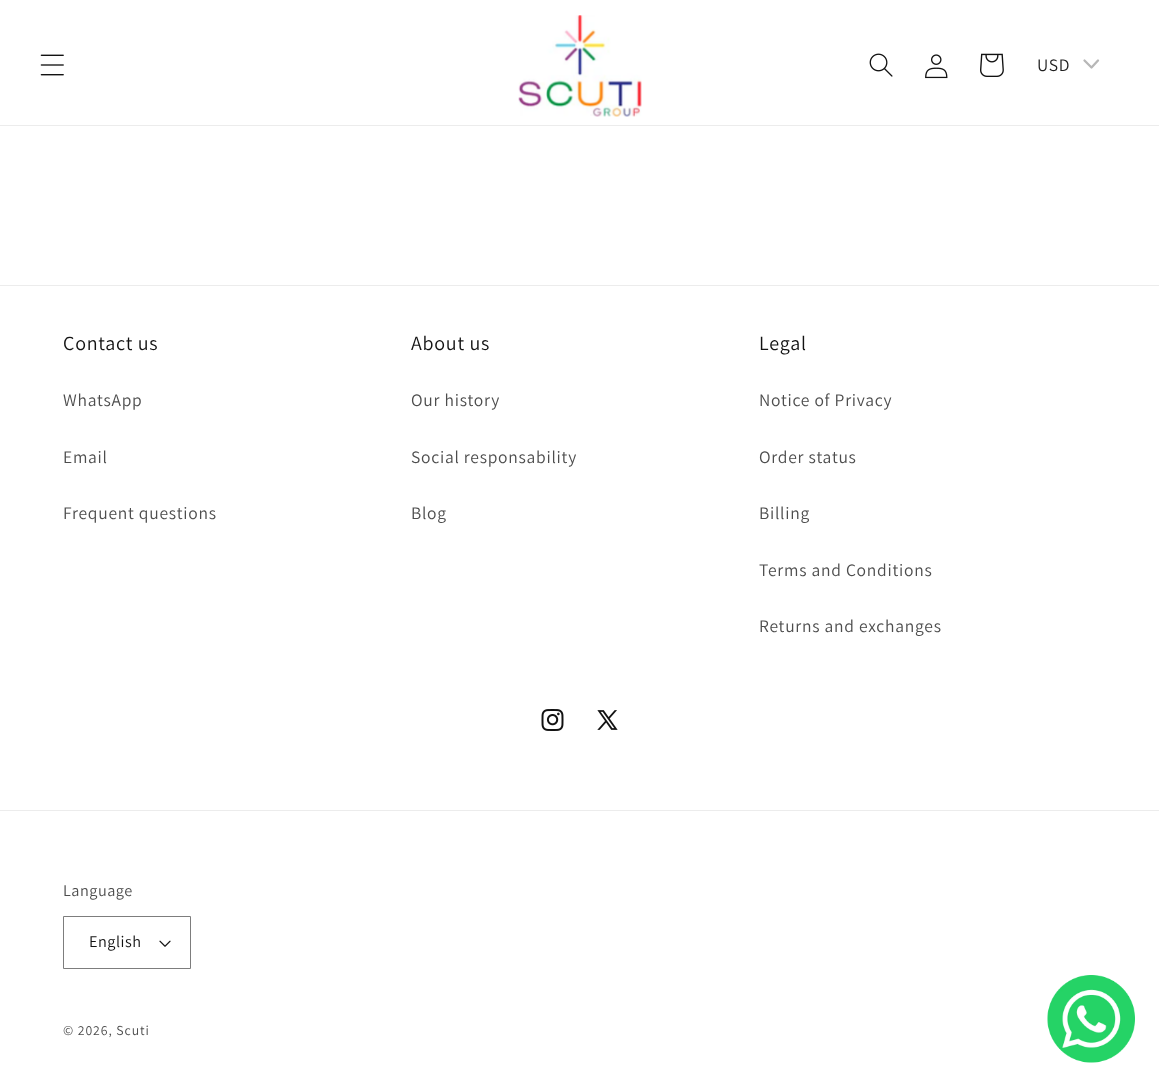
<svg xmlns="http://www.w3.org/2000/svg" width="1159" height="1087">
<style>
.a{font:17.5px Assistant;letter-spacing:0.75px;fill:#1e1e1e}
.b{font:20px Assistant;letter-spacing:0.75px;fill:#121212}
.c{font:17.5px Assistant;letter-spacing:0.75px;fill:#4d4d4d}
.d{font:16.25px Assistant;letter-spacing:0.5px;fill:#4d4d4d}
.e{font:16.25px Assistant;letter-spacing:0.5px;fill:#121212}
.f{font:13.75px Assistant;letter-spacing:0.9px;fill:#4d4d4d}
</style>
<rect width="100%" height="100%" fill="#fff"/>
<path fill="#ececec" d="M0 125h1159v1H0z"/>
<image href="1.png" x="40" y="54" width="24" height="22"/>
<image href="2.png" x="518" y="15" width="124" height="102"/>
<image href="3.png" x="869" y="53" width="24" height="24"/>
<image href="4.png" x="925" y="54" width="23" height="25"/>
<image href="5.png" x="980" y="53" width="24" height="24"/>
<path fill="none" stroke="#b7b7b7" stroke-width="2.3" stroke-linecap="round" stroke-linejoin="round" d="M1084.5 60.5l7 7l6.5-7"/>
<path fill="#ececec" d="M0 285h1159v1H0z"/>
<image href="6.png" x="541" y="709" width="23" height="22"/>
<image href="7.png" x="597" y="710" width="21" height="20"/>
<path fill="#ececec" d="M0 810h1159v1H0z"/>
<image href="8.png" x="159" y="940" width="12" height="7"/>
<path fill="none" stroke="#7d7d7d" d="M63.5 916.5h127v52H63.5z"/>
<image href="9.png" x="1047" y="975" width="88" height="88"/>
<text class="a" x="1037" y="71">USD</text>
<text class="b" x="63" y="350">Contact us</text>
<text class="c" x="63" y="406">WhatsApp</text>
<text class="c" x="63" y="463">Email</text>
<text class="c" x="63" y="519">Frequent questions</text>
<text class="b" x="411" y="350">About us</text>
<text class="c" x="411" y="406">Our history</text>
<text class="c" x="411" y="463">Social responsability</text>
<text class="c" x="411" y="519">Blog</text>
<text class="b" x="759" y="350">Legal</text>
<text class="c" x="759" y="406">Notice of Privacy</text>
<text class="c" x="759" y="463">Order status</text>
<text class="c" x="759" y="519">Billing</text>
<text class="c" x="759" y="576">Terms and Conditions</text>
<text class="c" x="759" y="632">Returns and exchanges</text>
<text class="d" x="63" y="896">Language</text>
<text class="e" x="89" y="947">English</text>
<text class="f" x="63" y="1035">© 2026, Scuti</text>
</svg>
